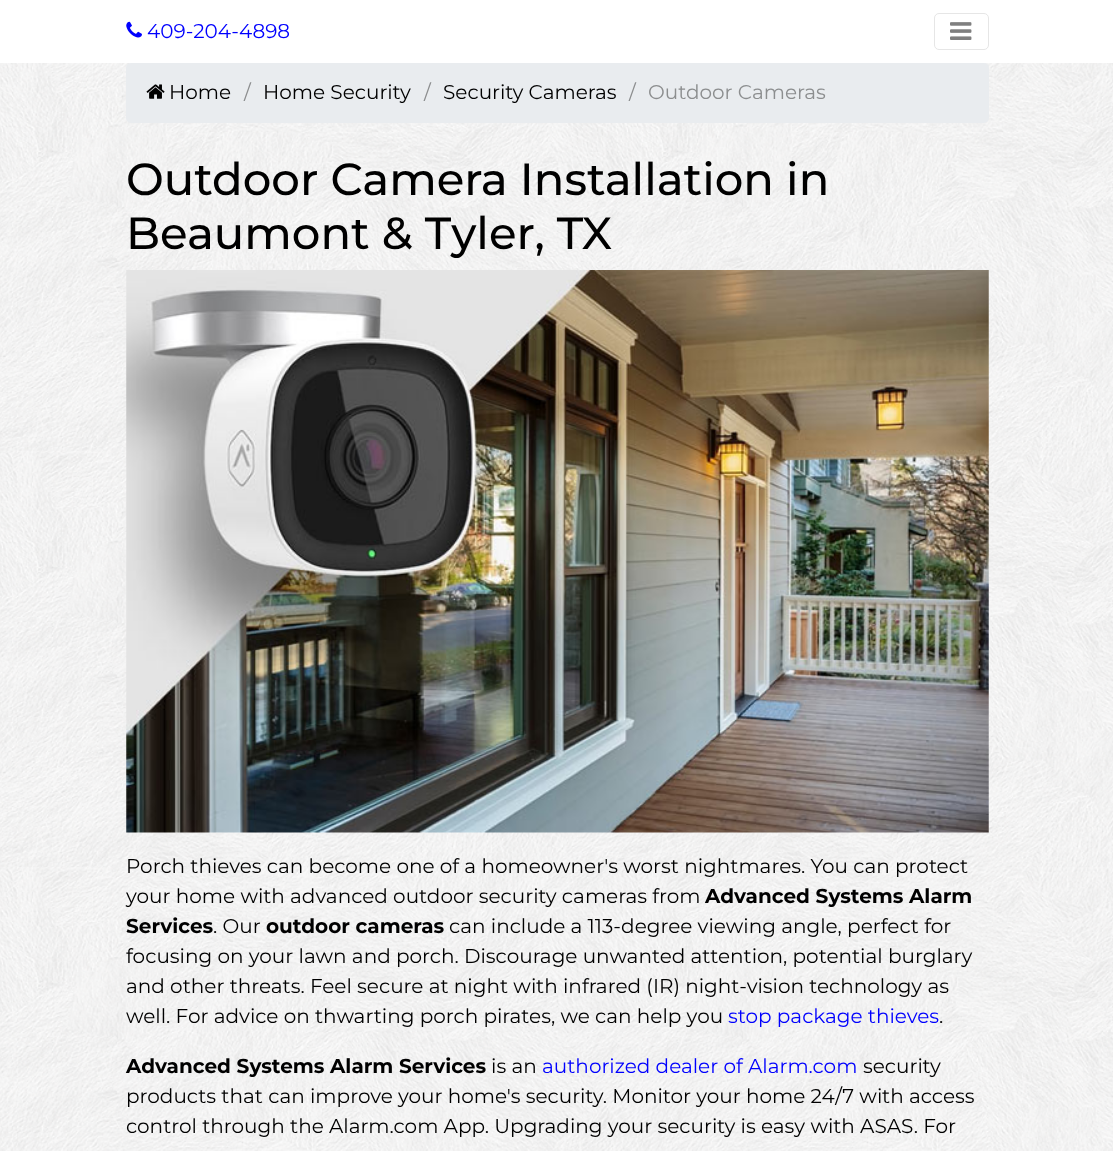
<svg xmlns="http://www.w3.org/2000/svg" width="1113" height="1151">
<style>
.a{font:20px Montserrat;fill:#0000fe}
.b{font:20px Montserrat;fill:#000}
.c{font:20px Montserrat;fill:#8c8e8f}
.d{font:500 45px Montserrat;fill:#000}
.e{font:bold 20px Montserrat;fill:#000}
</style>
<rect width="100%" height="100%" fill="#fff"/>
<image href="1.png" x="126" y="21" width="16" height="17"/>
<rect fill="none" stroke="#e6e6e6" x="934.5" y="13.5" width="54" height="36" rx="4.5"/>
<image href="2.png" x="950" y="22" width="22" height="18"/>
<image href="3.png" x="0" y="63" width="1113" height="1088"/>
<rect fill="#e9ecef" x="126" y="63" width="863" height="60" rx="5"/>
<image href="4.png" x="146" y="84" width="19" height="15"/>
<image href="5.png" x="126" y="270" width="863" height="563"/>
<text class="a" x="147" y="38">409-204-4898</text>
<text class="b" x="169" y="99">Home</text>
<text class="c" x="244" y="99">/</text>
<text class="b" x="263" y="99">Home Security</text>
<text class="c" x="424" y="99">/</text>
<text class="b" x="443" y="99">Security Cameras</text>
<text class="c" x="629" y="99">/</text>
<text class="c" x="648" y="99">Outdoor Cameras</text>
<text class="d" x="126" y="195">Outdoor Camera Installation in</text>
<text class="d" x="126" y="249">Beaumont &amp; Tyler, TX</text>
<text class="b" x="126" y="873">Porch thieves can become one of a homeowner's worst nightmares. You can protect</text>
<text class="b" x="126" y="903">your home with advanced outdoor security cameras from</text>
<text class="e" x="705" y="903">Advanced Systems Alarm</text>
<text class="e" x="126" y="933">Services</text>
<text class="b" x="213" y="933">. Our</text>
<text class="e" x="266" y="933">outdoor cameras</text>
<text class="b" x="449" y="933">can include a 113-degree viewing angle, perfect for</text>
<text class="b" x="126" y="963">focusing on your lawn and porch. Discourage unwanted attention, potential burglary</text>
<text class="b" x="126" y="993">and other threats. Feel secure at night with infrared (IR) night-vision technology as</text>
<text class="b" x="126" y="1023">well. For advice on thwarting porch pirates, we can help you</text>
<text class="a" x="728" y="1023">stop package thieves</text>
<text class="b" x="939" y="1023">.</text>
<text class="e" x="126" y="1073">Advanced Systems Alarm Services</text>
<text class="b" x="491" y="1073">is an</text>
<text class="a" x="542" y="1073">authorized dealer of Alarm.com</text>
<text class="b" x="863" y="1073">security</text>
<text class="b" x="126" y="1103">products that can improve your home's security. Monitor your home 24/7 with access</text>
<text class="b" x="126" y="1133">control through the Alarm.com App. Upgrading your security is easy with ASAS. For</text>
</svg>
